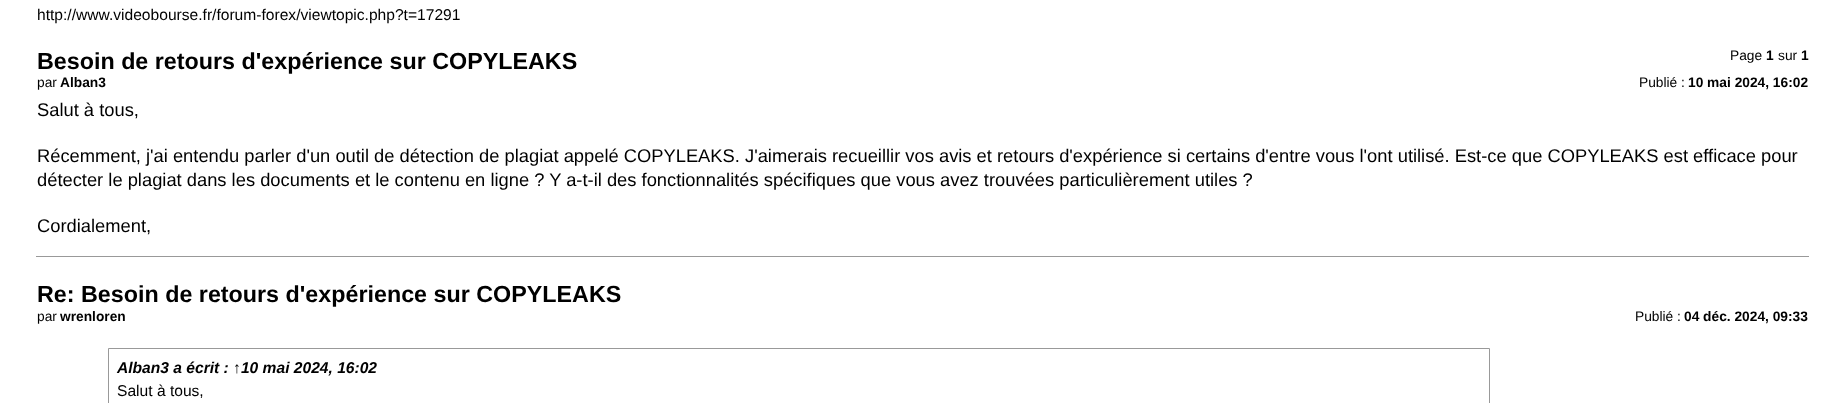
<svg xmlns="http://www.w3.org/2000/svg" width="1844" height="403">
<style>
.a{font:15.6px Liberation Sans;fill:#000}
.b{font:13.75px Liberation Sans;fill:#000}
.c{font:bold 13.75px Liberation Sans;fill:#000}
.d{font:bold 23.3px Liberation Sans;fill:#000}
.e{font:18.33px Liberation Sans;fill:#000}
.f{font:italic bold 15.6px Liberation Sans;fill:#000}
</style>
<rect width="100%" height="100%" fill="#fff"/>
<path fill="#999" d="M36 256h1773v1H36z"/>
<path fill="none" stroke="#999" d="M108.5 348.5h1381v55H108.5z"/>
<text class="a" x="37" y="20">http://www.videobourse.fr/forum-forex/viewtopic.php?t=17291</text>
<text class="b" x="1730" y="60">Page</text>
<text class="c" x="1766" y="60">1</text>
<text class="b" x="1778" y="60">sur</text>
<text class="c" x="1801" y="60">1</text>
<text class="d" x="37" y="69">Besoin de retours d'expérience sur COPYLEAKS</text>
<text class="b" x="37" y="87">par</text>
<text class="c" x="60" y="87">Alban3</text>
<text class="b" x="1639" y="87">Publié :</text>
<text class="c" x="1688" y="87">10 mai 2024, 16:02</text>
<text class="e" x="37" y="116">Salut à tous,</text>
<text class="e" x="37" y="162">Récemment, j'ai entendu parler d'un outil de détection de plagiat appelé COPYLEAKS. J'aimerais recueillir vos avis et retours d'expérience si certains d'entre vous l'ont utilisé. Est-ce que COPYLEAKS est efficace pour</text>
<text class="e" x="37" y="186">détecter le plagiat dans les documents et le contenu en ligne ? Y a-t-il des fonctionnalités spécifiques que vous avez trouvées particulièrement utiles ?</text>
<text class="e" x="37" y="232">Cordialement,</text>
<text class="d" x="37" y="302">Re: Besoin de retours d'expérience sur COPYLEAKS</text>
<text class="b" x="37" y="321">par</text>
<text class="c" x="60" y="321">wrenloren</text>
<text class="b" x="1635" y="321">Publié :</text>
<text class="c" x="1684" y="321">04 déc. 2024, 09:33</text>
<text class="f" x="117" y="373">Alban3 a écrit : ↑10 mai 2024, 16:02</text>
<text class="a" x="117" y="396">Salut à tous,</text>
</svg>
